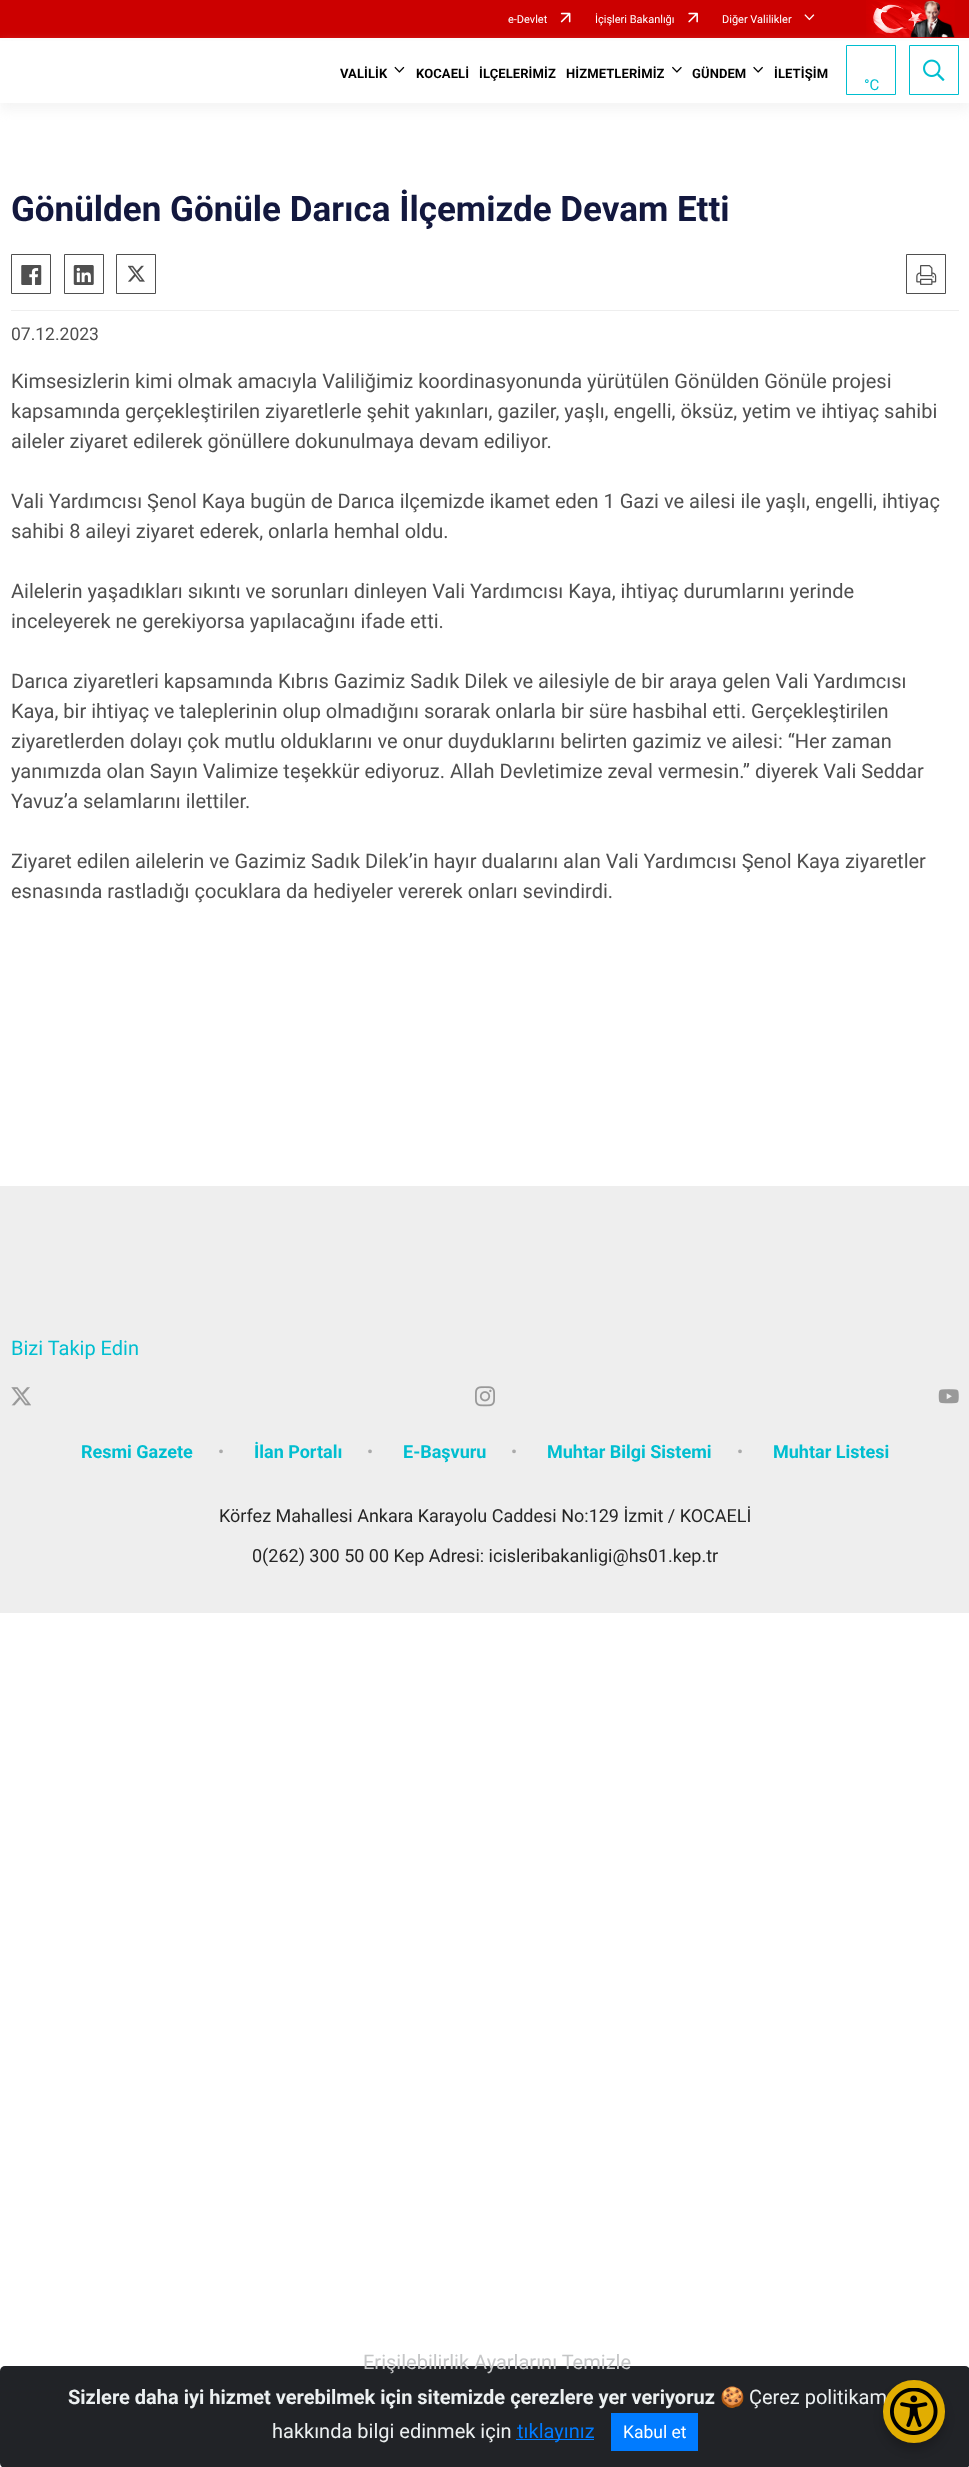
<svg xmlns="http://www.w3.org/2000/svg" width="969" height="2467">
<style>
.a{font:11px Roboto;fill:#fff}
.b{font:bold 13px Roboto;letter-spacing:0.1px;fill:#000}
.c{font:15px Roboto;fill:#00bed0}
.d{font:bold 35px Roboto;fill:#13183e}
.e{font:17.5px Roboto;fill:#4f4f4f}
.f{font:20px Roboto;fill:#4f4f4f}
.g{font:20px Roboto;fill:#00bed0}
.h{font:bold 18px Roboto;fill:#00bed0}
.i{font:18px Roboto;fill:#aaa}
.j{font:18px Roboto;fill:#252525}
.k{font:20px Roboto;fill:#c5c6c7}
.l{font:bold 20px Roboto;fill:#ecf0f1}
.m{font:20px Noto Color Emoji;fill:#ecf0f1}
.n{font:20px Roboto;fill:#ecf0f1}
.o{font:20px Roboto;fill:#007bff}
.p{font:17.5px Roboto;fill:#fff}
</style>
<rect width="100%" height="100%" fill="#fff"/>
<path fill="#c00" d="M0 0h969v38H0z"/>
<image href="1.png" x="560" y="12" width="11" height="11"/>
<image href="2.png" x="688" y="12" width="10" height="11"/>
<image href="3.png" x="804" y="14" width="11" height="7"/>
<image href="4.png" x="866" y="0" width="89" height="38"/>
<path fill="#eeeeee9e" filter="blur(6px)" d="M0 45h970v65H0z"/>
<path fill="#fff" d="M0 41h969v62H0z"/>
<image href="5.png" x="394" y="66" width="11" height="7"/>
<image href="6.png" x="672" y="66" width="10" height="7"/>
<image href="7.png" x="753" y="66" width="10" height="7"/>
<path fill="none" stroke="#00bed0" d="M846.5 45.5h49v49H846.5z"/>
<path fill="none" stroke="#00bed0" d="M909.5 45.5h49v49H909.5z"/>
<image href="8.png" x="923" y="59" width="22" height="22"/>
<path fill="#eee" d="M11 310h948v1H11z"/>
<path fill="none" stroke="#4f4f4f" d="M11.5 254.5h39v39H11.5z"/>
<image href="9.png" x="21" y="265" width="21" height="20"/>
<path fill="none" stroke="#4f4f4f" d="M64.5 254.5h39v39H64.5z"/>
<image href="10.png" x="73" y="265" width="21" height="20"/>
<path fill="none" stroke="#4f4f4f" d="M116.5 254.5h39v39H116.5z"/>
<image href="11.png" x="128" y="265" width="17" height="17"/>
<path fill="none" stroke="#4f4f4f" d="M906.5 254.5h39v39H906.5z"/>
<image href="12.png" x="916" y="265" width="21" height="20"/>
<path fill="#eee" d="M0 1186h969v427H0z"/>
<image href="13.png" x="11" y="1387" width="20" height="19"/>
<image href="14.png" x="475" y="1386" width="20" height="21"/>
<image href="15.png" x="938" y="1389" width="21" height="15"/>
<rect fill="#212327" y="2366" width="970" height="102" rx="5"/>
<rect fill="#00000033" filter="blur(5px)" x="883" y="2388" width="62" height="62" rx="31"/>
<path fill="#007bff" d="M516 2439h78v1H516z"/>
<path fill="#007bff" d="M611 2413h87v38H611z"/>
<text class="a" x="508" y="23">e-Devlet</text>
<text class="a" x="595" y="23">İçişleri Bakanlığı</text>
<text class="a" x="722" y="23">Diğer Valilikler</text>
<text class="b" x="340" y="78">VALİLİK</text>
<text class="b" x="416" y="78">KOCAELİ</text>
<text class="b" x="479" y="78">İLÇELERİMİZ</text>
<text class="b" x="566" y="78">HİZMETLERİMİZ</text>
<text class="b" x="692" y="78">GÜNDEM</text>
<text class="b" x="774" y="78">İLETİŞİM</text>
<text class="c" x="864" y="90">°C</text>
<text class="d" x="11" y="221">Gönülden Gönüle Darıca İlçemizde Devam Etti</text>
<text class="e" x="11" y="340">07.12.2023</text>
<text class="f" x="11" y="388">Kimsesizlerin kimi olmak amacıyla Valiliğimiz koordinasyonunda yürütülen Gönülden Gönüle projesi</text>
<text class="f" x="11" y="418">kapsamında gerçekleştirilen ziyaretlerle şehit yakınları, gaziler, yaşlı, engelli, öksüz, yetim ve ihtiyaç sahibi</text>
<text class="f" x="11" y="448">aileler ziyaret edilerek gönüllere dokunulmaya devam ediliyor.</text>
<text class="f" x="11" y="508">Vali Yardımcısı Şenol Kaya bugün de Darıca ilçemizde ikamet eden 1 Gazi ve ailesi ile yaşlı, engelli, ihtiyaç</text>
<text class="f" x="11" y="538">sahibi 8 aileyi ziyaret ederek, onlarla hemhal oldu.</text>
<text class="f" x="11" y="598">Ailelerin yaşadıkları sıkıntı ve sorunları dinleyen Vali Yardımcısı Kaya, ihtiyaç durumlarını yerinde</text>
<text class="f" x="11" y="628">inceleyerek ne gerekiyorsa yapılacağını ifade etti.</text>
<text class="f" x="11" y="688">Darıca ziyaretleri kapsamında Kıbrıs Gazimiz Sadık Dilek ve ailesiyle de bir araya gelen Vali Yardımcısı</text>
<text class="f" x="11" y="718">Kaya, bir ihtiyaç ve taleplerinin olup olmadığını sorarak onlarla bir süre hasbihal etti. Gerçekleştirilen</text>
<text class="f" x="11" y="748">ziyaretlerden dolayı çok mutlu olduklarını ve onur duyduklarını belirten gazimiz ve ailesi: “Her zaman</text>
<text class="f" x="11" y="778">yanımızda olan Sayın Valimize teşekkür ediyoruz. Allah Devletimize zeval vermesin.” diyerek Vali Seddar</text>
<text class="f" x="11" y="808">Yavuz’a selamlarını ilettiler.</text>
<text class="f" x="11" y="868">Ziyaret edilen ailelerin ve Gazimiz Sadık Dilek’in hayır dualarını alan Vali Yardımcısı Şenol Kaya ziyaretler</text>
<text class="f" x="11" y="898">esnasında rastladığı çocuklara da hediyeler vererek onları sevindirdi.</text>
<text class="g" x="11" y="1355">Bizi Takip Edin</text>
<text class="h" x="81" y="1458">Resmi Gazete</text>
<text class="i" x="218" y="1458">•</text>
<text class="h" x="254" y="1458">İlan Portalı</text>
<text class="i" x="367" y="1458">•</text>
<text class="h" x="403" y="1458">E-Başvuru</text>
<text class="i" x="511" y="1458">•</text>
<text class="h" x="547" y="1458">Muhtar Bilgi Sistemi</text>
<text class="i" x="737" y="1458">•</text>
<text class="h" x="773" y="1458">Muhtar Listesi</text>
<text class="j" x="219" y="1522">Körfez Mahallesi Ankara Karayolu Caddesi No:129 İzmit / KOCAELİ</text>
<text class="j" x="252" y="1562">0(262) 300 50 00 Kep Adresi: icisleribakanligi@hs01.kep.tr</text>
<text class="k" x="363" y="2369">Erişilebilirlik Ayarlarını Temizle</text>
<text class="l" x="68" y="2404">Sizlere daha iyi hizmet verebilmek için sitemizde çerezlere yer veriyoruz</text>
<text class="m" x="720" y="2404">🍪</text>
<text class="n" x="749" y="2404">Çerez politikam</text>
<rect fill="#e1ad01" x="883" y="2380" width="62" height="63" rx="31"/>
<image href="16.png" x="890" y="2388" width="48" height="47"/>
<text class="n" x="272" y="2438">hakkında bilgi edinmek için</text>
<text class="o" x="517" y="2438">tıklayınız</text>
<text class="p" x="623" y="2438">Kabul et</text>
</svg>
